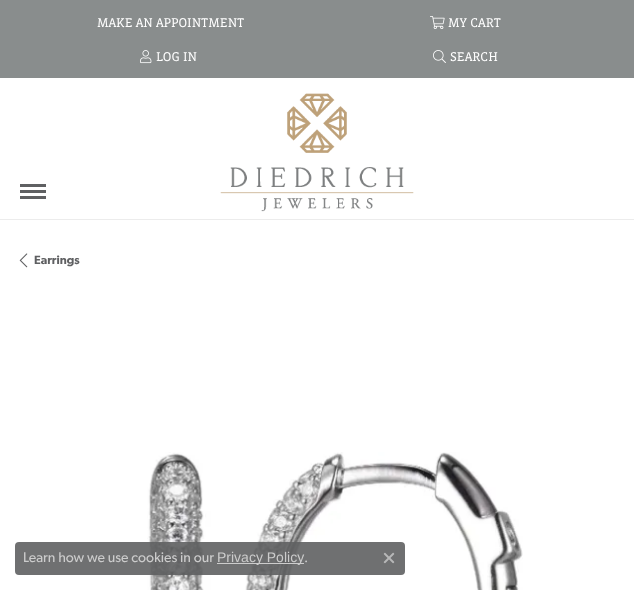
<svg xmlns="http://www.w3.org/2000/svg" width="634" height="590">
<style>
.a{font:13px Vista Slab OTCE;fill:#fff}
.b{font:600 12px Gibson;fill:#5f6062}
.c{font:14px Gibson;fill:#ccc}
.d{font:14px Liberation Sans;fill:#ccc}
</style>
<rect width="100%" height="100%" fill="#898d8d"/>
<image href="1.png" x="430" y="16" width="15" height="13"/>
<image href="2.png" x="140" y="50" width="12" height="14"/>
<image href="3.png" x="433" y="50" width="13" height="13"/>
<path fill="#fff" d="M0 78h634v141H0z"/>
<path fill="#ececec" d="M0 219h634v1H0z"/>
<path fill="#5f6062" d="M20 184h26v3H20z"/>
<path fill="#5f6062" d="M20 190h26v3H20z"/>
<path fill="#5f6062" d="M20 196h26v3H20z"/>
<image href="4.png" x="220" y="93" width="194" height="119"/>
<path fill="#fff" d="M0 220h634v370H0z"/>
<image href="5.png" x="19" y="253" width="9" height="15"/>
<image href="6.png" x="147" y="452" width="376" height="138"/>
<rect fill="#5f6062e6" x="15" y="542" width="390" height="33" rx="4"/>
<path fill="#ccc" d="M217 563h87v1H217z"/>
<image href="7.png" x="383" y="552" width="12" height="12"/>
<text class="a" x="97" y="27">MAKE AN APPOINTMENT</text>
<text class="a" x="448" y="27">MY CART</text>
<text class="a" x="156" y="61">LOG IN</text>
<text class="a" x="450" y="61">SEARCH</text>
<text class="b" x="34" y="264">Earrings</text>
<text class="c" x="23" y="562">Learn how we use cookies in our</text>
<text class="d" x="217" y="562">Privacy Policy</text>
<text class="c" x="304" y="562">.</text>
</svg>
